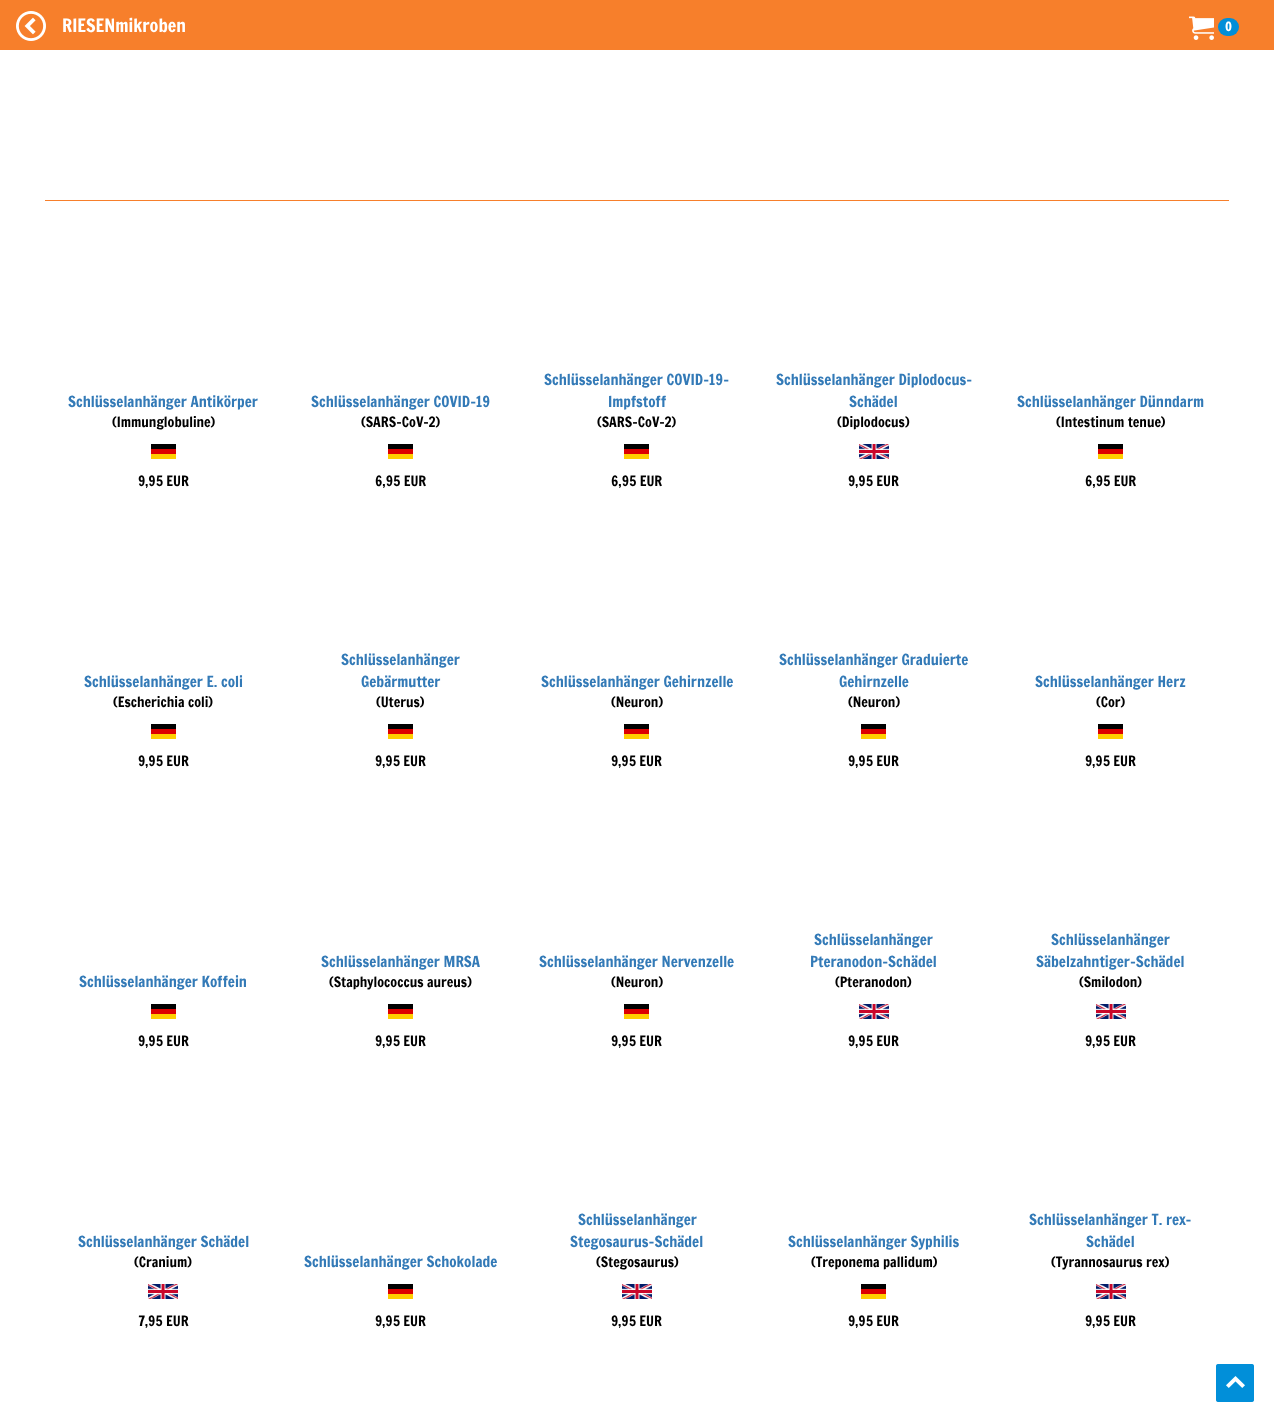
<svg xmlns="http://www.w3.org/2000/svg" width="1274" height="1422">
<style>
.a{font:18px Francois One;fill:#fff}
.b{font:bold 12px Francois One;fill:#fff}
.c{font:15px Francois One;fill:#337ab7}
.d{font:14px Francois One;fill:#000}
</style>
<rect width="100%" height="100%" fill="#fff"/>
<path fill="#f77f2b" d="M0 0h1274v50H0z"/>
<image href="1.png" x="16" y="11" width="30" height="30"/>
<image href="2.png" x="1189" y="16" width="25" height="24"/>
<rect fill="#018ed8" x="1218" y="18" width="21" height="18" rx="9"/>
<path fill="#f77f2b" d="M45 200h1184v1H45z"/>
<image href="3.png" x="151" y="444" width="25" height="15"/>
<image href="3.png" x="388" y="444" width="25" height="15"/>
<image href="3.png" x="624" y="444" width="25" height="15"/>
<image href="4.png" x="859" y="444" width="30" height="15"/>
<image href="3.png" x="1098" y="444" width="25" height="15"/>
<image href="3.png" x="151" y="724" width="25" height="15"/>
<image href="3.png" x="388" y="724" width="25" height="15"/>
<image href="3.png" x="624" y="724" width="25" height="15"/>
<image href="3.png" x="861" y="724" width="25" height="15"/>
<image href="3.png" x="1098" y="724" width="25" height="15"/>
<image href="3.png" x="151" y="1004" width="25" height="15"/>
<image href="3.png" x="388" y="1004" width="25" height="15"/>
<image href="3.png" x="624" y="1004" width="25" height="15"/>
<image href="4.png" x="859" y="1004" width="30" height="15"/>
<image href="4.png" x="1096" y="1004" width="30" height="15"/>
<image href="4.png" x="148" y="1284" width="30" height="15"/>
<image href="3.png" x="388" y="1284" width="25" height="15"/>
<image href="5.png" x="622" y="1284" width="30" height="15"/>
<image href="3.png" x="861" y="1284" width="25" height="15"/>
<image href="4.png" x="1096" y="1284" width="30" height="15"/>
<image href="6.png" x="1216" y="1364" width="38" height="38"/>
<text class="a" x="62" y="32">RIESENmikroben</text>
<text class="b" x="1225" y="31">0</text>
<text class="c" x="68" y="407">Schlüsselanhänger Antikörper</text>
<text class="d" x="112" y="427">(Immunglobuline)</text>
<text class="d" x="138" y="486">9,95 EUR</text>
<text class="c" x="311" y="407">Schlüsselanhänger COVID-19</text>
<text class="d" x="361" y="427">(SARS-CoV-2)</text>
<text class="d" x="375" y="486">6,95 EUR</text>
<text class="c" x="544" y="385">Schlüsselanhänger COVID-19-</text>
<text class="c" x="608" y="407">Impfstoff</text>
<text class="d" x="597" y="427">(SARS-CoV-2)</text>
<text class="d" x="611" y="486">6,95 EUR</text>
<text class="c" x="776" y="385">Schlüsselanhänger Diplodocus-</text>
<text class="c" x="849" y="407">Schädel</text>
<text class="d" x="837" y="427">(Diplodocus)</text>
<text class="d" x="848" y="486">9,95 EUR</text>
<text class="c" x="1017" y="407">Schlüsselanhänger Dünndarm</text>
<text class="d" x="1056" y="427">(Intestinum tenue)</text>
<text class="d" x="1085" y="486">6,95 EUR</text>
<text class="c" x="84" y="687">Schlüsselanhänger E. coli</text>
<text class="d" x="113" y="707">(Escherichia coli)</text>
<text class="d" x="138" y="766">9,95 EUR</text>
<text class="c" x="341" y="665">Schlüsselanhänger</text>
<text class="c" x="361" y="687">Gebärmutter</text>
<text class="d" x="376" y="707">(Uterus)</text>
<text class="d" x="375" y="766">9,95 EUR</text>
<text class="c" x="541" y="687">Schlüsselanhänger Gehirnzelle</text>
<text class="d" x="611" y="707">(Neuron)</text>
<text class="d" x="611" y="766">9,95 EUR</text>
<text class="c" x="779" y="665">Schlüsselanhänger Graduierte</text>
<text class="c" x="839" y="687">Gehirnzelle</text>
<text class="d" x="848" y="707">(Neuron)</text>
<text class="d" x="848" y="766">9,95 EUR</text>
<text class="c" x="1035" y="687">Schlüsselanhänger Herz</text>
<text class="d" x="1096" y="707">(Cor)</text>
<text class="d" x="1085" y="766">9,95 EUR</text>
<text class="c" x="79" y="987">Schlüsselanhänger Koffein</text>
<text class="d" x="138" y="1046">9,95 EUR</text>
<text class="c" x="321" y="967">Schlüsselanhänger MRSA</text>
<text class="d" x="329" y="987">(Staphylococcus aureus)</text>
<text class="d" x="375" y="1046">9,95 EUR</text>
<text class="c" x="539" y="967">Schlüsselanhänger Nervenzelle</text>
<text class="d" x="611" y="987">(Neuron)</text>
<text class="d" x="611" y="1046">9,95 EUR</text>
<text class="c" x="814" y="945">Schlüsselanhänger</text>
<text class="c" x="810" y="967">Pteranodon-Schädel</text>
<text class="d" x="835" y="987">(Pteranodon)</text>
<text class="d" x="848" y="1046">9,95 EUR</text>
<text class="c" x="1051" y="945">Schlüsselanhänger</text>
<text class="c" x="1036" y="967">Säbelzahntiger-Schädel</text>
<text class="d" x="1079" y="987">(Smilodon)</text>
<text class="d" x="1085" y="1046">9,95 EUR</text>
<text class="c" x="78" y="1247">Schlüsselanhänger Schädel</text>
<text class="d" x="134" y="1267">(Cranium)</text>
<text class="d" x="138" y="1326">7,95 EUR</text>
<text class="c" x="304" y="1267">Schlüsselanhänger Schokolade</text>
<text class="d" x="375" y="1326">9,95 EUR</text>
<text class="c" x="578" y="1225">Schlüsselanhänger</text>
<text class="c" x="570" y="1247">Stegosaurus-Schädel</text>
<text class="d" x="596" y="1267">(Stegosaurus)</text>
<text class="d" x="611" y="1326">9,95 EUR</text>
<text class="c" x="788" y="1247">Schlüsselanhänger Syphilis</text>
<text class="d" x="811" y="1267">(Treponema pallidum)</text>
<text class="d" x="848" y="1326">9,95 EUR</text>
<text class="c" x="1029" y="1225">Schlüsselanhänger T. rex-</text>
<text class="c" x="1086" y="1247">Schädel</text>
<text class="d" x="1051" y="1267">(Tyrannosaurus rex)</text>
<text class="d" x="1085" y="1326">9,95 EUR</text>
</svg>
